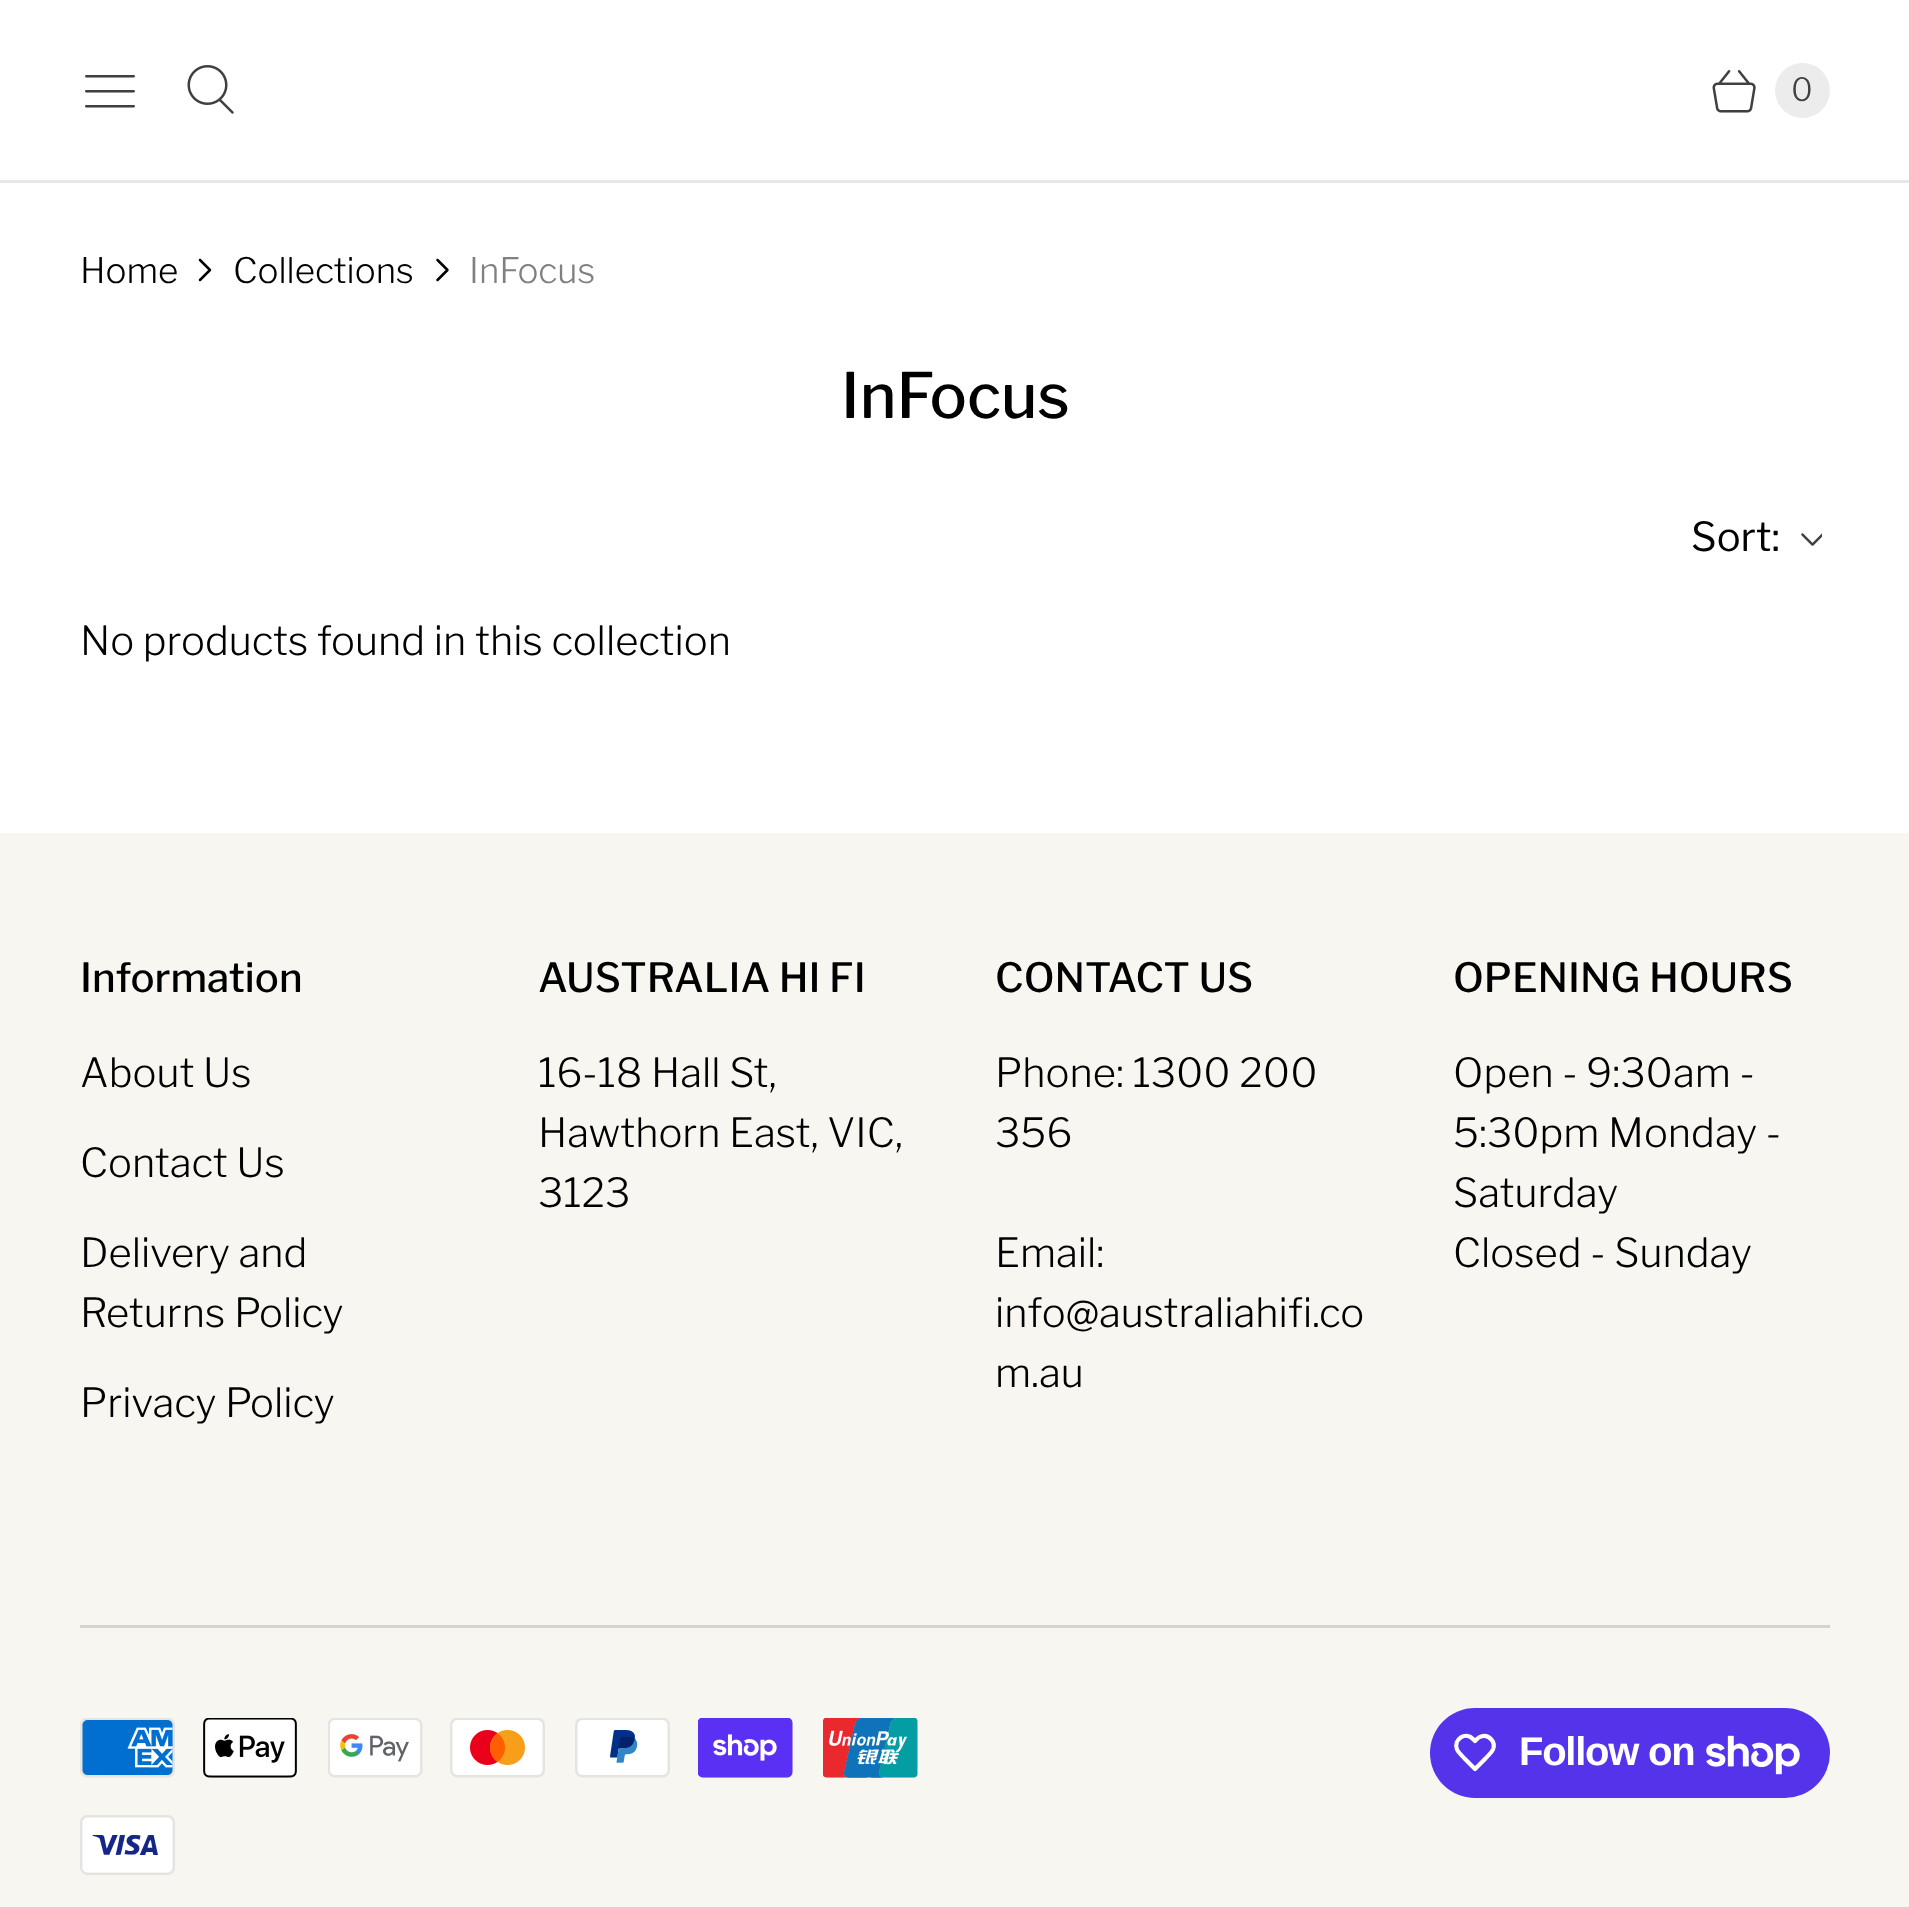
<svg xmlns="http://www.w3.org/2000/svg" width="1909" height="1907">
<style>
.a{font:300 32px Libre Franklin;fill:#404040}
.b{font:300 35px Libre Franklin;fill:#000}
.c{font:300 35px Libre Franklin;fill:#808080}
.d{font:500 62.5px Libre Franklin;fill:#000}
.e{font:40px Libre Franklin;fill:#000}
.f{font:300 40px Libre Franklin;fill:#000}
.g{font:500 40.25px Libre Franklin;fill:#000}
.h{font:bold 40px Liberation Sans;letter-spacing:-1.25px;fill:#fff}
</style>
<rect width="100%" height="100%" fill="#fff"/>
<path fill="#e7e7e7" d="M0 180h1909v3H0z"/>
<image href="1.png" x="85" y="75" width="50" height="33"/>
<image href="2.png" x="187" y="65" width="47" height="49"/>
<image href="3.png" x="1712" y="70" width="44" height="43"/>
<circle fill="#ececec" cx="1802.5" cy="90.5" r="27.5"/>
<image href="4.png" x="198" y="258" width="14" height="24"/>
<image href="5.png" x="436" y="258" width="13" height="24"/>
<image href="6.png" x="1801" y="533" width="21" height="13"/>
<path fill="#f7f6f1" d="M0 833h1909v1074H0z"/>
<path fill="#d6d4cb" d="M80 1625h1750v3H80z"/>
<image href="7.png" x="80" y="1718" width="95" height="60"/>
<image href="8.png" x="203" y="1718" width="94" height="60"/>
<image href="9.png" x="328" y="1718" width="95" height="60"/>
<image href="10.png" x="450" y="1718" width="95" height="60"/>
<image href="11.png" x="575" y="1718" width="95" height="60"/>
<image href="12.png" x="698" y="1718" width="95" height="60"/>
<image href="13.png" x="823" y="1718" width="95" height="60"/>
<image href="14.png" x="80" y="1815" width="95" height="60"/>
<rect fill="#5433eb" x="1430" y="1708" width="400" height="90" rx="45"/>
<path fill="none" stroke="#fff" stroke-width="4.2" stroke-linejoin="round" d="M1473 1739l2 2c2-2 3.5-4 6-4.5c8-2.5 15 5.5 12 13c-1.5 3.5-5 6-7.5 9l-10.5 10.5l-10.5-10.5c-2.5-3-6-5.5-7.5-9c-4-10 8.5-18.5 16-10.5z"/>
<image href="15.png" x="1706" y="1735" width="94" height="40"/>
<text class="a" x="1791" y="101">0</text>
<text class="b" x="80" y="283">Home</text>
<text class="b" x="233" y="283">Collections</text>
<text class="c" x="469" y="283">InFocus</text>
<text class="d" x="841" y="418">InFocus</text>
<text class="e" x="1691" y="551">Sort:</text>
<text class="f" x="80" y="655">No products found in this collection</text>
<text class="g" x="80" y="992">Information</text>
<text class="f" x="80" y="1087">About Us</text>
<text class="f" x="80" y="1177">Contact Us</text>
<text class="f" x="80" y="1267">Delivery and</text>
<text class="f" x="80" y="1327">Returns Policy</text>
<text class="f" x="80" y="1417">Privacy Policy</text>
<text class="g" x="538" y="992">AUSTRALIA HI FI</text>
<text class="f" x="538" y="1087">16-18 Hall St,</text>
<text class="f" x="538" y="1147">Hawthorn East, VIC,</text>
<text class="f" x="538" y="1207">3123</text>
<text class="g" x="995" y="992">CONTACT US</text>
<text class="f" x="995" y="1087">Phone: 1300 200</text>
<text class="f" x="995" y="1147">356</text>
<text class="f" x="995" y="1267">Email:</text>
<text class="f" x="995" y="1327">info@australiahifi.co</text>
<text class="f" x="995" y="1387">m.au</text>
<text class="g" x="1453" y="992">OPENING HOURS</text>
<text class="f" x="1453" y="1087">Open - 9:30am -</text>
<text class="f" x="1453" y="1147">5:30pm Monday -</text>
<text class="f" x="1453" y="1207">Saturday</text>
<text class="f" x="1453" y="1267">Closed - Sunday</text>
<text class="h" x="1519" y="1765">Follow on</text>
</svg>
